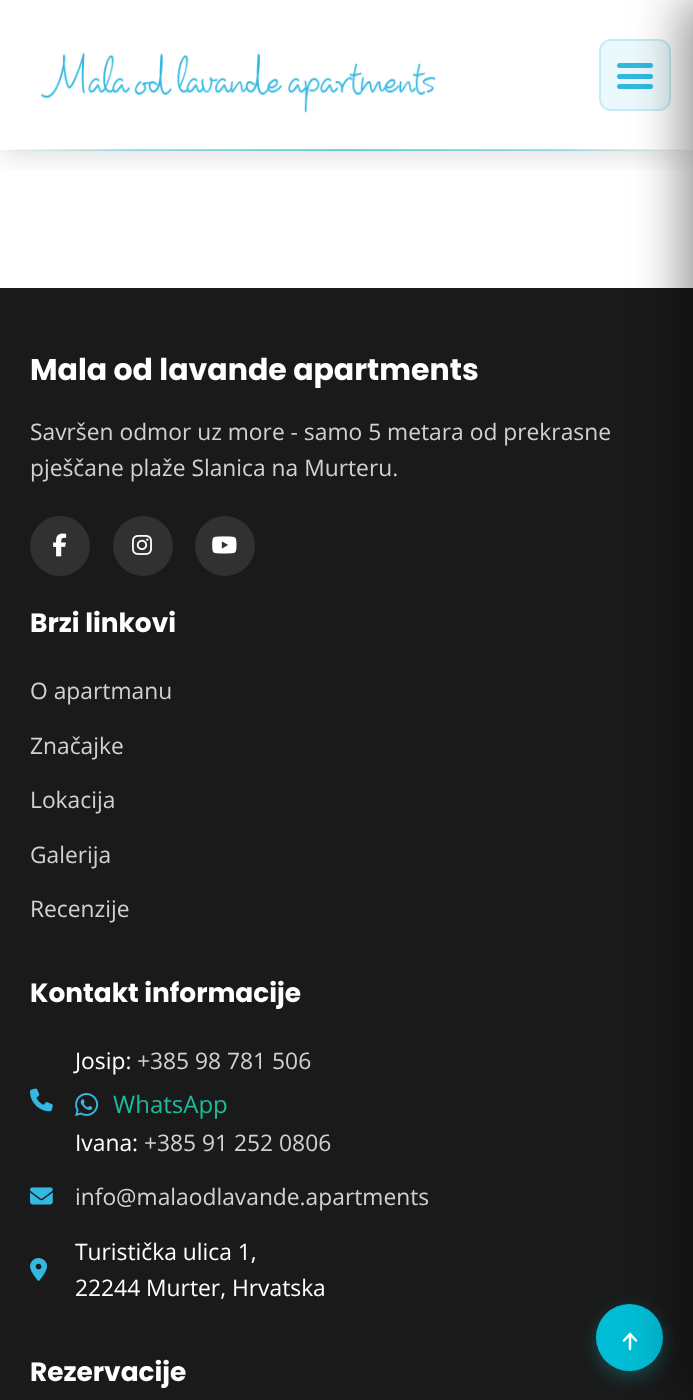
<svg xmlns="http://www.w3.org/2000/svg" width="693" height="1400">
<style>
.a{font:bold 30px Poppins;fill:#fff}
.b{font:22.8px Open Sans;fill:#d1d1d1}
.c{font:bold 26.4px Poppins;fill:#fff}
.d{font:22.8px Open Sans;fill:#fff}
.e{font:24px Open Sans;fill:#1abc9c}
</style>
<defs>
<clipPath id="clip1"><path d="M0 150h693v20H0z"/></clipPath>
<linearGradient id="g1" gradientUnits="userSpaceOnUse" x1="0" y1="149" x2="693" y2="149"><stop offset="0" stop-color="#13b9bd" stop-opacity="0"/><stop offset="0.2" stop-color="#13b9bd" stop-opacity="0.4"/><stop offset="0.5" stop-color="#13b9bd" stop-opacity="0.6"/><stop offset="0.8" stop-color="#13b9bd" stop-opacity="0.4"/><stop offset="1" stop-color="#13b9bd" stop-opacity="0"/></linearGradient>
</defs>
<rect width="100%" height="100%" fill="#fff"/>
<g clip-path="url(#clip1)">
<path fill="#00000026" filter="blur(15px)" d="M0 3h693v150H0z"/>
</g>
<image href="1.png" x="40" y="52" width="396" height="61"/>
<rect fill="#ebf8fc" x="599" y="39" width="72" height="72" rx="12"/>
<rect fill="none" stroke="#33b8e133" stroke-width="2" x="600" y="40" width="70" height="70" rx="11"/>
<rect fill="#33b8e1" x="617" y="63" width="36" height="5" rx="2.5"/>
<rect fill="#33b8e1" x="617" y="74" width="36" height="5" rx="2.5"/>
<rect fill="#33b8e1" x="617" y="84" width="36" height="5" rx="2.5"/>
<path fill="url(#g1)" d="M0 149h693v2H0z"/>
<path fill="#1a1a1a" d="M0 288h693v1112H0z"/>
<circle fill="#313131" cx="60" cy="546" r="30"/>
<image href="2.png" x="53" y="533" width="14" height="24"/>
<circle fill="#313131" cx="143" cy="546" r="30"/>
<image href="3.png" x="132" y="535" width="20" height="20"/>
<circle fill="#313131" cx="225" cy="546" r="30"/>
<image href="4.png" x="212" y="536" width="25" height="18"/>
<image href="5.png" x="30" y="1088" width="23" height="24"/>
<image href="6.png" x="75" y="1093" width="24" height="24"/>
<image href="7.png" x="30" y="1187" width="23" height="18"/>
<image href="8.png" x="30" y="1258" width="18" height="23"/>
<rect fill="#13b9bd4d" filter="blur(9px)" x="596" y="1310" width="67" height="67" rx="33.5"/>
<circle fill="#00bcd4" cx="629.5" cy="1337.5" r="33.5"/>
<path fill="none" stroke="#fff" stroke-width="2.5" stroke-linecap="round" stroke-linejoin="round" d="M624 1340.5l6-6.5l6 6.5m-6-6.5v15"/>
<path fill="#00000066" filter="blur(24px)" d="M681 0h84v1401H681z"/>
<text class="a" x="30" y="380">Mala od lavande apartments</text>
<text class="b" x="30" y="440">Savršen odmor uz more - samo 5 metara od prekrasne</text>
<text class="b" x="30" y="476">pješčane plaže Slanica na Murteru.</text>
<text class="c" x="30" y="632">Brzi linkovi</text>
<text class="b" x="30" y="699">O apartmanu</text>
<text class="b" x="30" y="754">Značajke</text>
<text class="b" x="30" y="808">Lokacija</text>
<text class="b" x="30" y="863">Galerija</text>
<text class="b" x="30" y="917">Recenzije</text>
<text class="c" x="30" y="1002">Kontakt informacije</text>
<text class="d" x="75" y="1069">Josip:</text>
<text class="b" x="137" y="1069">+385 98 781 506</text>
<text class="e" x="113" y="1113">WhatsApp</text>
<text class="d" x="75" y="1151">Ivana:</text>
<text class="b" x="144" y="1151">+385 91 252 0806</text>
<text class="b" x="75" y="1205">info@malaodlavande.apartments</text>
<text class="d" x="75" y="1260">Turistička ulica 1,</text>
<text class="d" x="75" y="1296">22244 Murter, Hrvatska</text>
<text class="c" x="30" y="1381">Rezervacije</text>
</svg>
